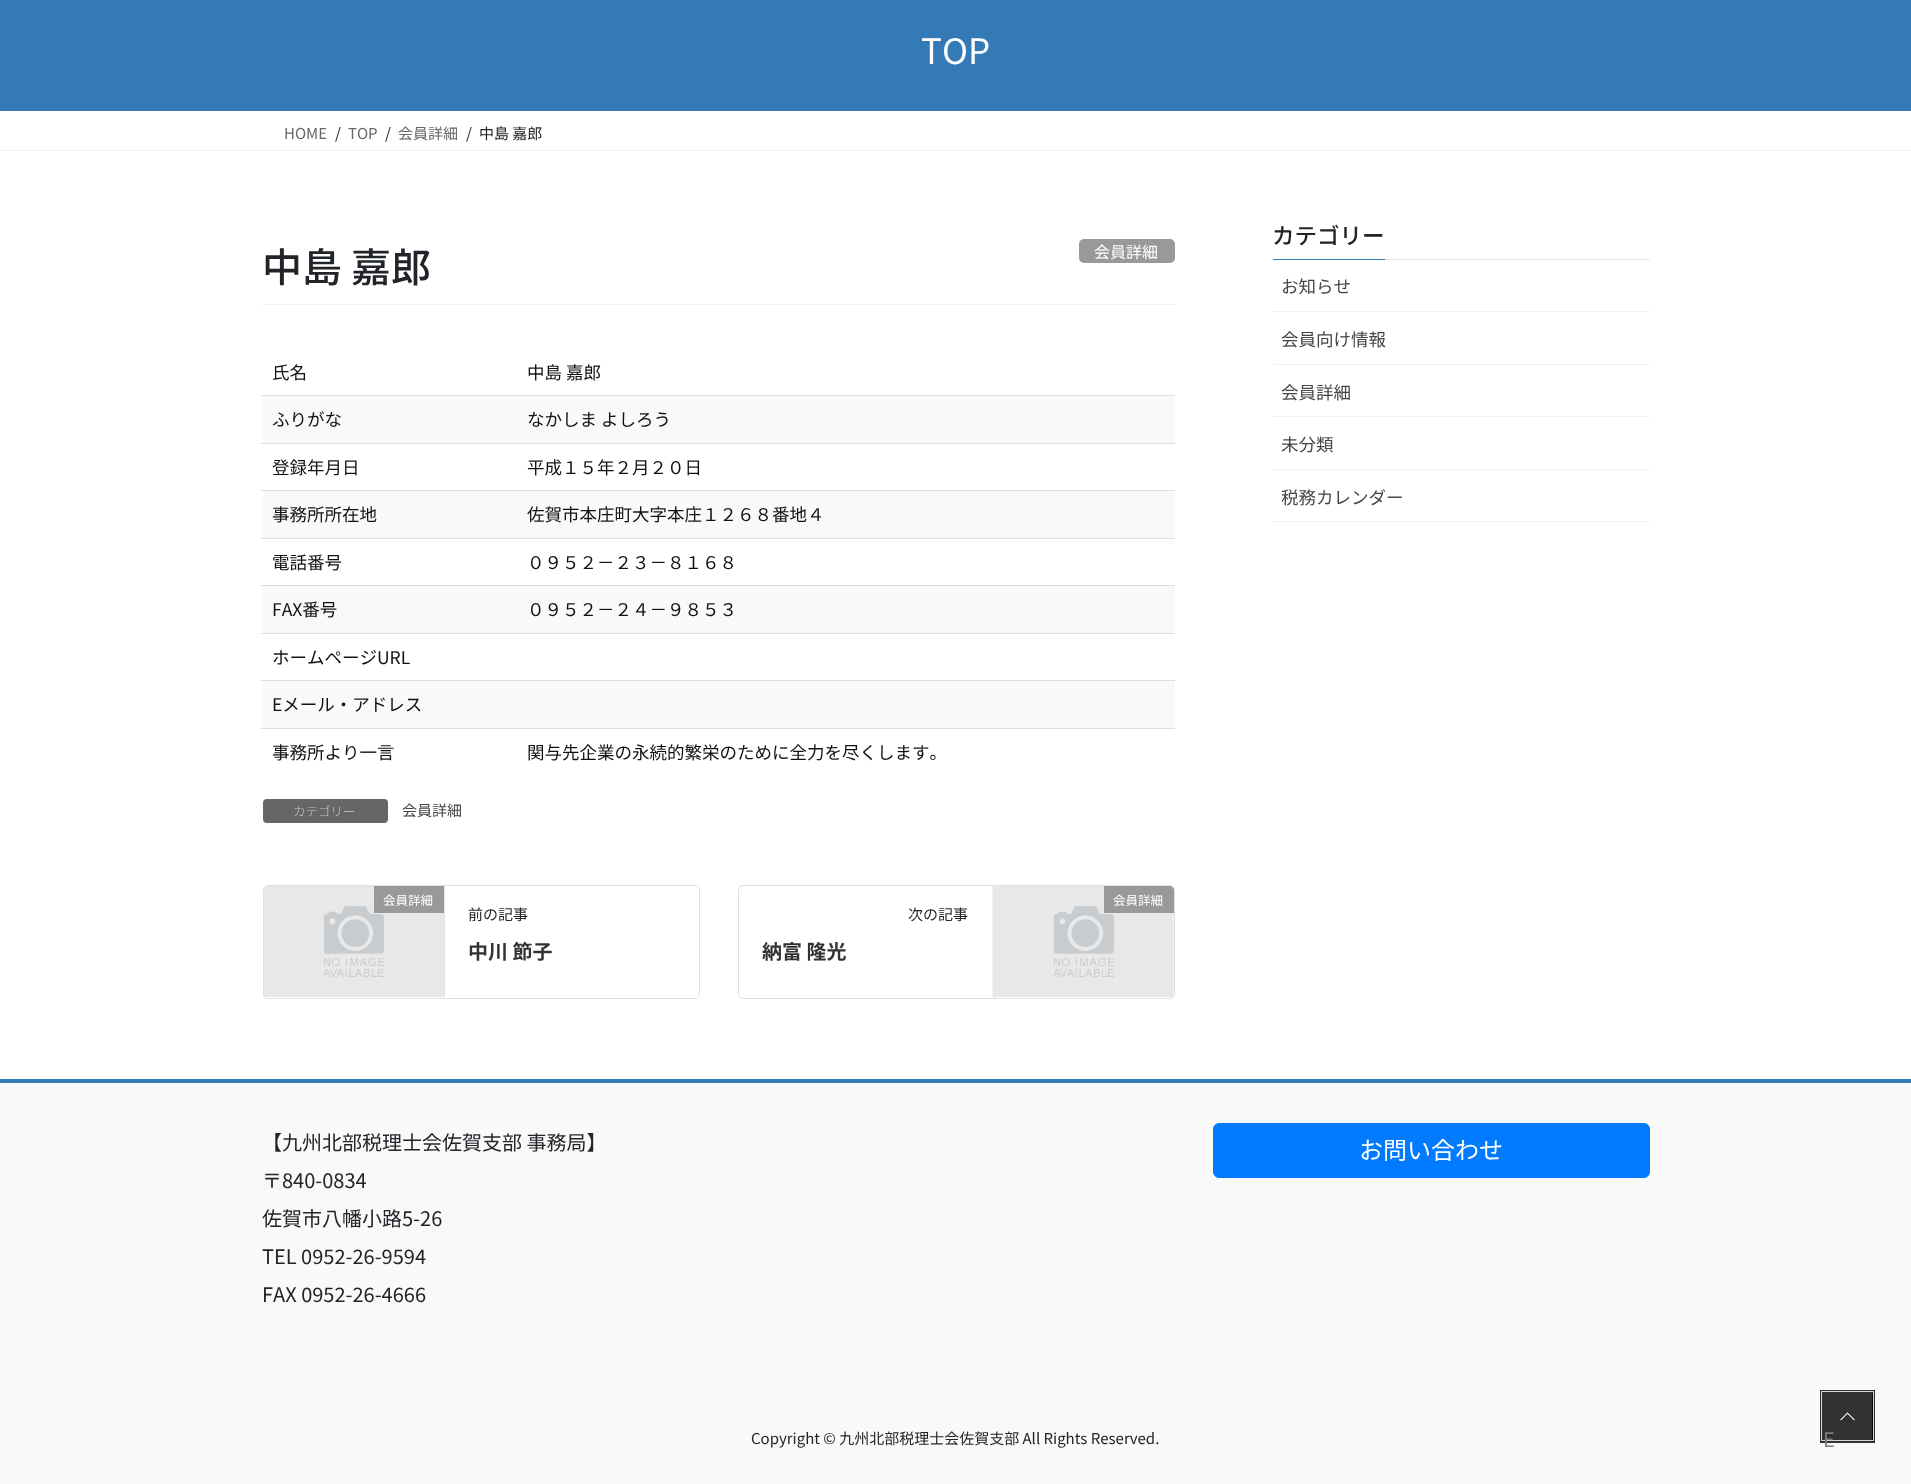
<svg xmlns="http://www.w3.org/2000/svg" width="1911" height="1484">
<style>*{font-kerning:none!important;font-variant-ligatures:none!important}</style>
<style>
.a{font:35px Noto Sans JP;fill:#fff}
.b{font:15px Noto Sans JP;fill:#666}
.c{font:15px Noto Sans JP;fill:#212529}
.d{font:500 40px Noto Sans JP;fill:#212529}
.e{font:16px Noto Sans JP;fill:#fff}
.f{font:17.5px Noto Sans JP;fill:#111}
.g{font:100 12.5px Noto Sans JP;fill:#fff}
.h{font:15px Noto Sans JP;fill:#464646}
.i{font:12.5px Noto Sans JP;fill:#fff}
.j{font:bold 20px Noto Sans JP;fill:#333}
.k{font:500 22.5px Noto Sans JP;fill:#212529}
.l{font:17.5px Noto Sans JP;fill:#464646}
.m{font:20px Noto Sans JP;fill:#212529}
.n{font:24px Noto Sans JP;fill:#fff}
.o{font:20px Noto Sans JP;fill:#7d7d7d}
</style>
<rect width="100%" height="100%" fill="#fff"/>
<path fill="#337ab7" d="M0 0h1911v111H0z"/>
<path fill="#f2f2f2" d="M0 150h1911v1H0z"/>
<path fill="#f2f2f2" d="M263 304h912v1H263z"/>
<rect fill="#999" x="1079" y="239" width="96" height="24" rx="5"/>
<path fill="#f9f9f9" d="M263 396h912v47H263z"/>
<path fill="#ddd" d="M261 395h914v1H261z"/>
<path fill="#ddd" d="M261 443h914v1H261z"/>
<path fill="#f9f9f9" d="M263 491h912v47H263z"/>
<path fill="#ddd" d="M261 490h914v1H261z"/>
<path fill="#ddd" d="M261 538h914v1H261z"/>
<path fill="#f9f9f9" d="M263 586h912v47H263z"/>
<path fill="#ddd" d="M261 585h914v1H261z"/>
<path fill="#ddd" d="M261 633h914v1H261z"/>
<path fill="#ddd" d="M261 680h914v1H261z"/>
<path fill="#f9f9f9" d="M263 681h912v47H263z"/>
<path fill="#ddd" d="M261 728h914v1H261z"/>
<rect fill="#666" x="263" y="799" width="125" height="24" rx="4"/>
<rect fill="none" stroke="#dfdfdf" x="263.5" y="885.5" width="436" height="113" rx="4.5"/>
<image href="1.png" x="264" y="886" width="180" height="111"/>
<path fill="#e5e5e5" d="M444 886h1v112H444z"/>
<path fill="#999" d="M374 886h70v27H374z"/>
<rect fill="none" stroke="#dfdfdf" x="738.5" y="885.5" width="436" height="113" rx="4.5"/>
<image href="2.png" x="992" y="886" width="182" height="111"/>
<path fill="#e5e5e5" d="M993 886h1v112H993z"/>
<path fill="#999" d="M1104 886h66c2 0 4 2 4 4v23h-70z"/>
<path fill="#e6e6e6" d="M1385 259h265v1H1385z"/>
<path fill="#337ab7" d="M1273 259h112v1H1273z"/>
<path fill="#f2f2f2" d="M1273 311h377v1H1273z"/>
<path fill="#f2f2f2" d="M1273 364h377v1H1273z"/>
<path fill="#f2f2f2" d="M1273 416h377v1H1273z"/>
<path fill="#f2f2f2" d="M1273 469h377v1H1273z"/>
<path fill="#f2f2f2" d="M1273 521h377v1H1273z"/>
<path fill="#f9f9f9" d="M0 1083h1911v401H0z"/>
<path fill="#337ab7" d="M0 1079h1911v4H0z"/>
<rect fill="#007bff" stroke="#007bff" x="1213.5" y="1123.5" width="436" height="54" rx="5.5"/>
<path fill="none" stroke="#323232" stroke-width="3" d="M1821.5 1391.5h52v50H1821.5z"/>
<path fill="none" stroke="#d6d6d6" d="M1821.5 1391.5h52v49H1821.5z"/>
<path fill="#000000cc" d="M1823 1393h50v47H1823z"/>
<image href="3.png" x="1840" y="1412" width="15" height="9"/>
<text class="a" x="921" y="64">TOP</text>
<text class="b" x="284" y="139">HOME</text>
<text class="c" x="335" y="139">/</text>
<text class="b" x="348" y="139">TOP</text>
<text class="c" x="385" y="139">/</text>
<text class="b" x="398" y="139">会員詳細</text>
<text class="c" x="466" y="139">/</text>
<text class="c" x="479" y="139">中島 嘉郎</text>
<text class="d" x="262" y="282">中島 嘉郎</text>
<text class="e" x="1094" y="258">会員詳細</text>
<text class="f" x="272" y="379">氏名</text>
<text class="f" x="527" y="379">中島 嘉郎</text>
<text class="f" x="272" y="426">ふりがな</text>
<text class="f" x="527" y="426">なかしま よしろう</text>
<text class="f" x="272" y="474">登録年月日</text>
<text class="f" x="527" y="474">平成１５年２月２０日</text>
<text class="f" x="272" y="521">事務所所在地</text>
<text class="f" x="527" y="521">佐賀市本庄町大字本庄１２６８番地４</text>
<text class="f" x="272" y="569">電話番号</text>
<text class="f" x="527" y="569">０９５２－２３－８１６８</text>
<text class="f" x="272" y="616">FAX番号</text>
<text class="f" x="527" y="616">０９５２－２４－９８５３</text>
<text class="f" x="272" y="664">ホームページURL</text>
<text class="f" x="272" y="711">Eメール・アドレス</text>
<text class="f" x="272" y="759">事務所より一言</text>
<text class="f" x="527" y="759">関与先企業の永続的繁栄のために全力を尽くします。</text>
<text class="g" x="293" y="816">カテゴリー</text>
<text class="h" x="402" y="816">会員詳細</text>
<text class="i" x="383" y="905">会員詳細</text>
<text class="c" x="468" y="920">前の記事</text>
<text class="j" x="468" y="959">中川 節子</text>
<text class="i" x="1113" y="905">会員詳細</text>
<text class="c" x="908" y="920">次の記事</text>
<text class="j" x="762" y="959">納富 隆光</text>
<text class="k" x="1272" y="244">カテゴリー</text>
<text class="l" x="1281" y="293">お知らせ</text>
<text class="l" x="1281" y="346">会員向け情報</text>
<text class="l" x="1281" y="399">会員詳細</text>
<text class="l" x="1281" y="451">未分類</text>
<text class="l" x="1281" y="504">税務カレンダー</text>
<text class="m" x="262" y="1150">【九州北部税理士会佐賀支部 事務局】</text>
<text class="m" x="262" y="1188">〒840-0834</text>
<text class="m" x="262" y="1226">佐賀市八幡小路5-26</text>
<text class="m" x="262" y="1264">TEL 0952-26-9594</text>
<text class="m" x="262" y="1302">FAX 0952-26-4666</text>
<text class="n" x="1359" y="1159">お問い合わせ</text>
<text class="c" x="751" y="1444">Copyright © 九州北部税理士会佐賀支部 All Rights Reserved.</text>
<text class="o" x="1823" y="1447">E</text>
</svg>
